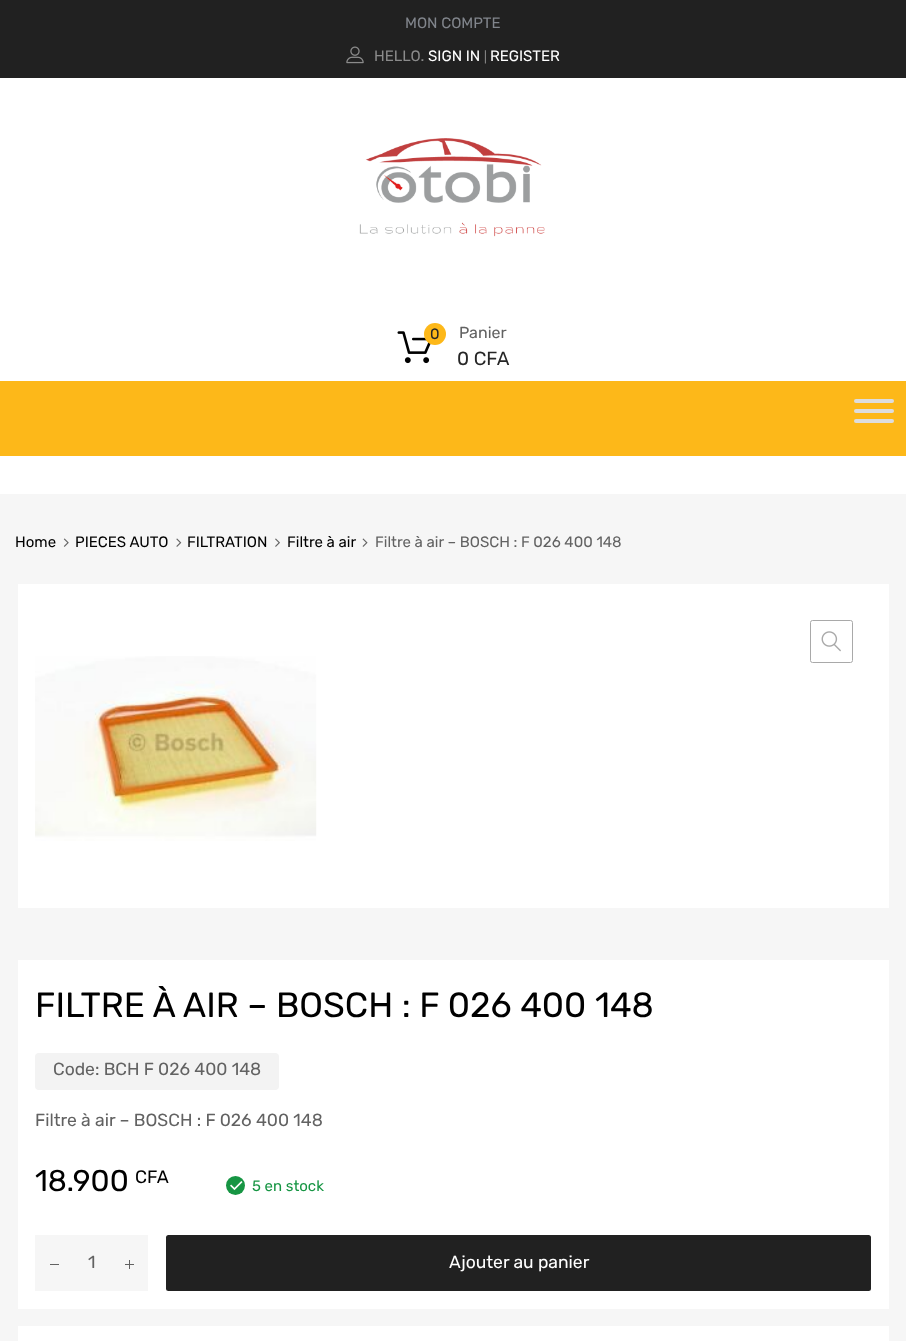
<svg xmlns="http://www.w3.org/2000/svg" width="906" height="1341">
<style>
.a{font:15px Rubik;fill:#81858c}
.b{font:15px Rubik;fill:#8b8b8b}
.c{font:15px Rubik;fill:#fff}
.d{font:12px Rubik;fill:#8b8b8b}
.e{font:15px Rubik;fill:#262626}
.f{font:16px Rubik;fill:#626262}
.g{font:19px Rubik;fill:#262626}
.h{font:15px Rubik;fill:#000}
.i{font:15px Rubik;fill:#626262}
.j{font:35px Rubik;fill:#000}
.k{font:17.5px Rubik;fill:#626262}
.l{font:30px Rubik;fill:#000}
.m{font:18px Rubik;fill:#000}
.n{font:15px Rubik;fill:#169543}
.o{font:17.5px Rubik;fill:#fff}
</style>
<rect width="100%" height="100%" fill="#f6f6f6"/>
<path fill="#fff" d="M0 78h906v416H0z"/>
<path fill="#212121" d="M0 0h906v78H0z"/>
<image href="1.png" x="346" y="46" width="18" height="18"/>
<image href="2.png" x="359" y="138" width="186" height="99"/>
<image href="3.png" x="397" y="331" width="34" height="33"/>
<circle fill="#fdb819" cx="435" cy="334" r="11"/>
<path fill="#fdb819" d="M0 381h906v75H0z"/>
<rect fill="#ddd" x="854" y="399" width="40" height="4" rx="2"/>
<rect fill="#ddd" x="854" y="409" width="40" height="4" rx="2"/>
<rect fill="#ddd" x="854" y="419" width="40" height="4" rx="2"/>
<image href="4.png" x="63" y="538" width="6" height="9"/>
<image href="5.png" x="176" y="538" width="6" height="9"/>
<image href="6.png" x="275" y="538" width="5" height="9"/>
<image href="7.png" x="362" y="538" width="6" height="9"/>
<path fill="#fff" d="M18 584h871v324H18z"/>
<rect fill="none" stroke="#a9a9a9" x="810.5" y="620.5" width="42" height="42" rx="2"/>
<image href="8.png" x="821" y="631" width="20" height="21"/>
<image href="9.png" x="35" y="656" width="282" height="185"/>
<path fill="#fff" d="M18 960h871v349H18z"/>
<rect fill="#f3f3f3" x="35" y="1053" width="244" height="37" rx="4"/>
<circle fill="#169543" cx="235.5" cy="1185.5" r="9.5"/>
<image href="10.png" x="230" y="1181" width="13" height="10"/>
<path fill="#f6f6f6" d="M35 1235h113v56H35z"/>
<path fill="#626262" d="M50 1264h9v1H50z"/>
<path fill="#626262" d="M129 1260h1v9H129z"/>
<path fill="#626262" d="M125 1264h9v1H125z"/>
<rect fill="#212121" x="166" y="1235" width="705" height="56" rx="2.5"/>
<path fill="#fff" d="M18 1326h871v15H18z"/>
<text class="a" x="405" y="28">MON COMPTE</text>
<text class="b" x="374" y="61">HELLO.</text>
<text class="c" x="428" y="61">SIGN IN</text>
<text class="d" x="484" y="61">|</text>
<text class="c" x="490" y="61">REGISTER</text>
<text class="e" x="430" y="339">0</text>
<text class="f" x="459" y="338">Panier</text>
<text class="g" x="457" y="365">0 CFA</text>
<text class="h" x="15" y="547">Home</text>
<text class="h" x="75" y="547">PIECES AUTO</text>
<text class="h" x="187" y="547">FILTRATION</text>
<text class="h" x="287" y="547">Filtre à air</text>
<text class="i" x="375" y="547">Filtre à air – BOSCH : F 026 400 148</text>
<text class="j" x="35" y="1017">FILTRE À AIR – BOSCH : F 026 400 148</text>
<text class="k" x="53" y="1075">Code: BCH F 026 400 148</text>
<text class="k" x="35" y="1126">Filtre à air – BOSCH : F 026 400 148</text>
<text class="l" x="35" y="1191">18.900</text>
<text class="m" x="135" y="1183">CFA</text>
<text class="n" x="252" y="1191">5 en stock</text>
<text class="k" x="88" y="1268">1</text>
<text class="o" x="449" y="1268">Ajouter au panier</text>
</svg>
